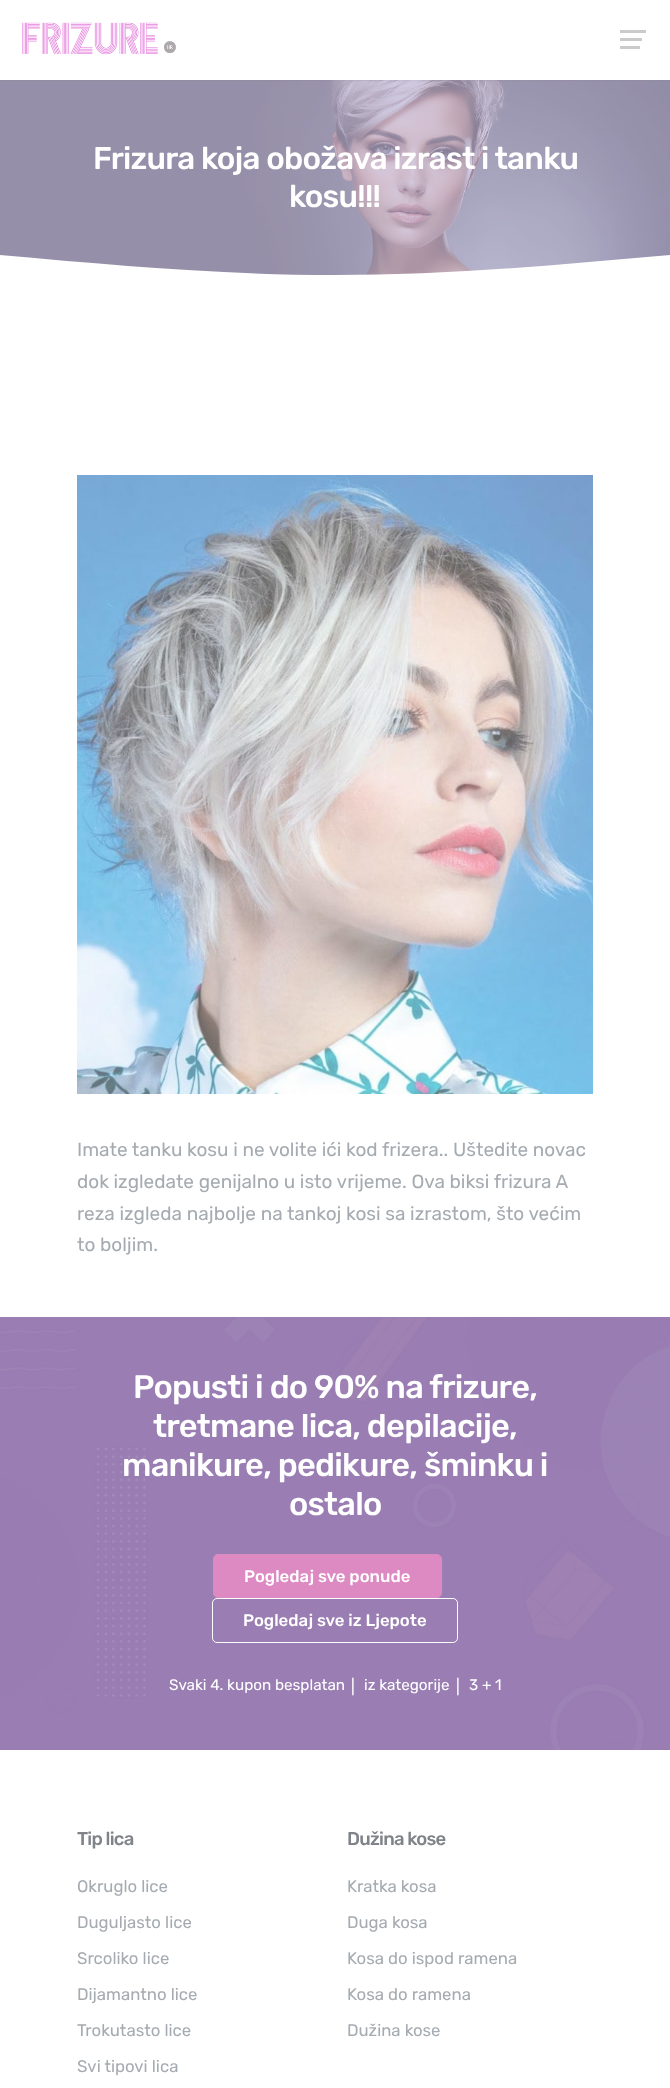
<svg xmlns="http://www.w3.org/2000/svg" width="670" height="2088">
<style>
.a{font:500 31.4px Rubik;letter-spacing:-0.75px;fill:#fff}
.b{font:19px Rubik;fill:#a5abb0}
.c{font:500 32.6px Rubik;letter-spacing:-0.75px;fill:#fff}
.d{font:500 16.75px Rubik;fill:#fff}
.e{font:15.25px Rubik;fill:#fff}
.f{font:16px Rubik;fill:#fff}
.g{font:500 18.5px Rubik;letter-spacing:-0.75px;fill:#808489}
.h{font:16.75px Rubik;fill:#a5abb0}
</style>
<defs>
<clipPath id="clip1"><path d="M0 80h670v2H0z"/></clipPath>
<clipPath id="clip2"><path d="M0 240h670v37H0z"/></clipPath>
</defs>
<rect width="100%" height="100%" fill="#fff"/>
<image href="2.png" x="0" y="80" width="670" height="195"/>
<g clip-path="url(#clip1)">
<path fill="#82828266" filter="blur(1px)" d="M0 0h670v80H0z"/>
</g>
<image href="1.png" x="22" y="22" width="154" height="33"/>
<path fill="#cbcbcb" d="M620 38h22v3H620z"/>
<path fill="#cbcbcb" d="M620 30h26v3H620z"/>
<path fill="#cbcbcb" d="M620 46h20v3H620z"/>
<g clip-path="url(#clip2)">
<path fill="#fff" d="M0 255c111 10 223 20 335 20c112 0 223-10 335-20v134h-670z"/>
</g>
<image href="3.png" x="77" y="475" width="516" height="619"/>
<image href="4.png" x="0" y="1317" width="670" height="433"/>
<rect fill="#dd89c2" stroke="#dd89c2" x="213.5" y="1554.5" width="228" height="43" rx="4.5"/>
<rect fill="none" stroke="#fff" x="212.5" y="1598.5" width="245" height="44" rx="4.5"/>
<text class="a" x="93" y="169">Frizura koja obožava izrast i tanku</text>
<text class="a" x="289" y="207">kosu!!!</text>
<text class="b" x="77" y="1156">Imate tanku kosu i ne volite ići kod frizera.. Uštedite novac</text>
<text class="b" x="77" y="1188">dok izgledate genijalno u isto vrijeme. Ova biksi frizura A</text>
<text class="b" x="77" y="1220">reza izgleda najbolje na tankoj kosi sa izrastom, što većim</text>
<text class="b" x="77" y="1251">to boljim.</text>
<text class="c" x="133" y="1398">Popusti i do 90% na frizure,</text>
<text class="c" x="153" y="1437">tretmane lica, depilacije,</text>
<text class="c" x="122" y="1476">manikure, pedikure, šminku i</text>
<text class="c" x="289" y="1515">ostalo</text>
<text class="d" x="244" y="1582">Pogledaj sve ponude</text>
<text class="d" x="243" y="1626">Pogledaj sve iz Ljepote</text>
<text class="e" x="169" y="1690">Svaki 4. kupon besplatan</text>
<text class="f" x="351" y="1692">|</text>
<text class="e" x="364" y="1690">iz kategorije</text>
<text class="f" x="456" y="1692">|</text>
<text class="e" x="469" y="1690">3 + 1</text>
<text class="g" x="77" y="1845">Tip lica</text>
<text class="h" x="77" y="1892">Okruglo lice</text>
<text class="h" x="77" y="1928">Duguljasto lice</text>
<text class="h" x="77" y="1964">Srcoliko lice</text>
<text class="h" x="77" y="2000">Dijamantno lice</text>
<text class="h" x="77" y="2036">Trokutasto lice</text>
<text class="h" x="77" y="2072">Svi tipovi lica</text>
<text class="g" x="347" y="1845">Dužina kose</text>
<text class="h" x="347" y="1892">Kratka kosa</text>
<text class="h" x="347" y="1928">Duga kosa</text>
<text class="h" x="347" y="1964">Kosa do ispod ramena</text>
<text class="h" x="347" y="2000">Kosa do ramena</text>
<text class="h" x="347" y="2036">Dužina kose</text>
</svg>
